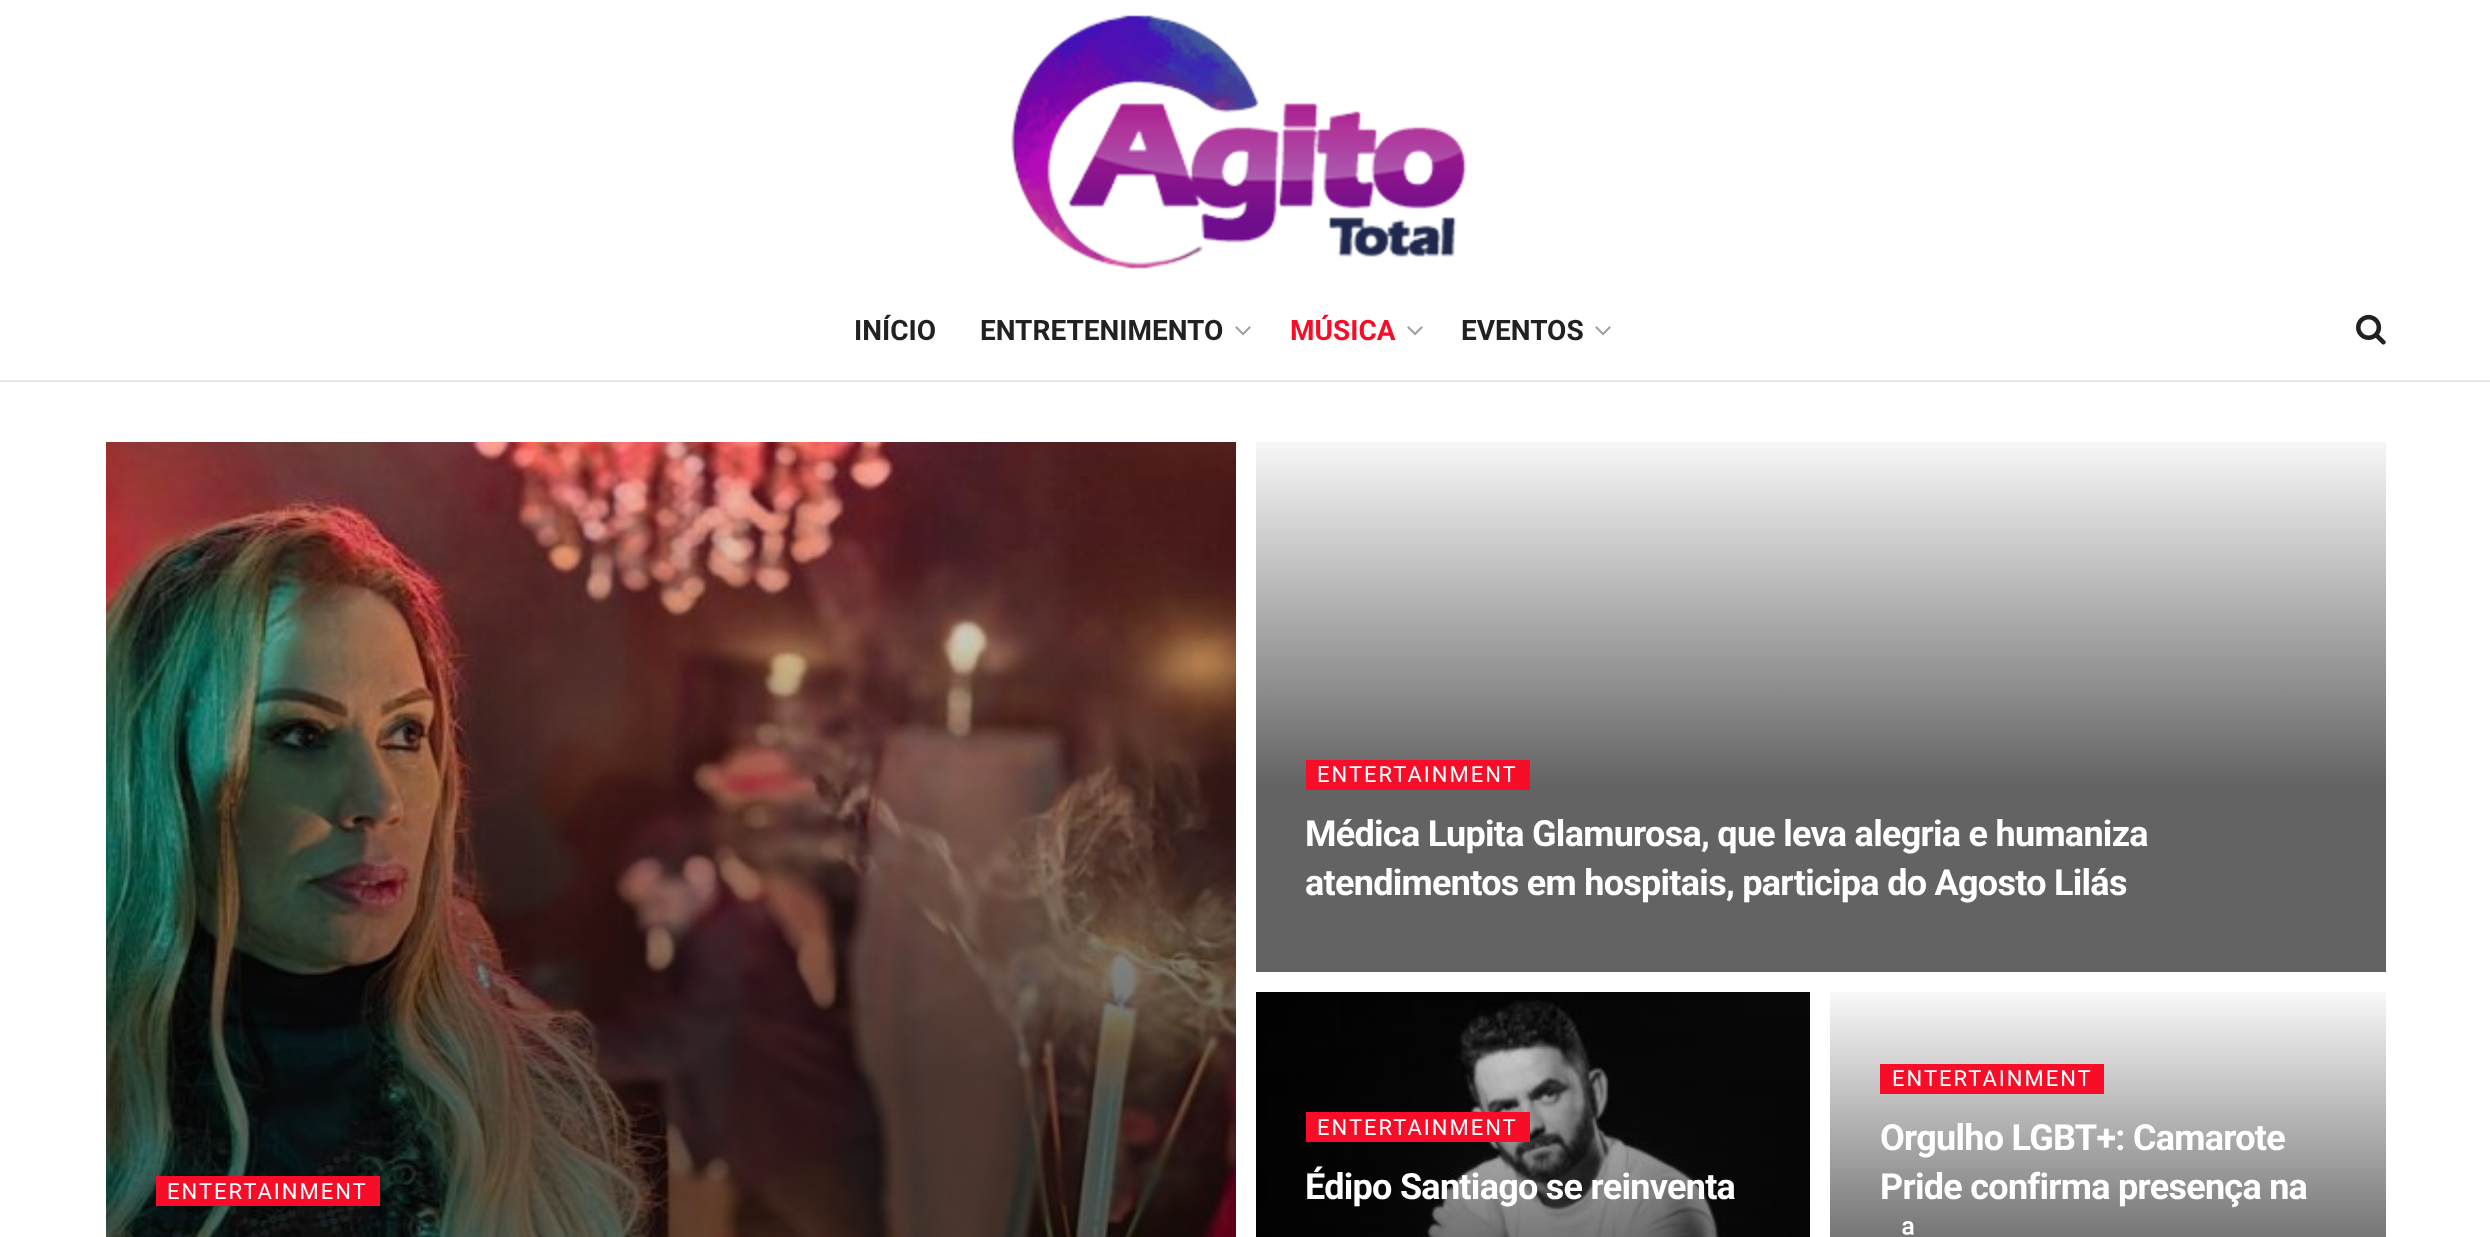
<svg xmlns="http://www.w3.org/2000/svg" width="2490" height="1237">
<style>
.a{font:bold 28px Roboto;fill:#212121}
.b{font:bold 28px Roboto;fill:#f70d28}
.c{font:22px Roboto;letter-spacing:2px;fill:#fff}
.d{font:bold 36px Roboto;letter-spacing:-0.72px;fill:#fff}
</style>
<defs>
<linearGradient id="g1" gradientUnits="userSpaceOnUse" x1="1791" y1="442" x2="1791" y2="972"><stop offset="0" stop-color="#f7f7f7"/><stop offset="0.65" stop-color="#636363"/><stop offset="1" stop-color="#636363"/></linearGradient>
<linearGradient id="g2" gradientUnits="userSpaceOnUse" x1="2078" y1="992" x2="2078" y2="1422"><stop offset="0" stop-color="#f8f8f8"/><stop offset="0.65" stop-color="#636363"/><stop offset="1" stop-color="#636363"/></linearGradient>
</defs>
<rect width="100%" height="100%" fill="#fff"/>
<image href="1.png" x="1011" y="15" width="456" height="254"/>
<path fill="#e8e8e8" d="M0 380h2490v2H0z"/>
<image href="2.png" x="1235" y="326" width="16" height="10"/>
<image href="2.png" x="1407" y="326" width="16" height="10"/>
<image href="2.png" x="1595" y="326" width="16" height="10"/>
<image href="3.png" x="2356" y="314" width="30" height="31"/>
<image href="4.png" x="106" y="442" width="1130" height="795"/>
<path fill="#f70d28" d="M156 1176h224v30H156z"/>
<path fill="url(#g1)" d="M1256 442h1130v530H1256z"/>
<path fill="#f70d28" d="M1306 760h224v30H1306z"/>
<image href="5.png" x="1256" y="992" width="554" height="245"/>
<path fill="#f70d28" d="M1306 1112h224v30H1306z"/>
<path fill="url(#g2)" d="M1830 992h556v245H1830z"/>
<path fill="#f70d28" d="M1880 1064h224v30H1880z"/>
<text class="a" x="854" y="340">INÍCIO</text>
<text class="a" x="980" y="340">ENTRETENIMENTO</text>
<text class="b" x="1290" y="340">MÚSICA</text>
<text class="a" x="1461" y="340">EVENTOS</text>
<text class="c" x="167" y="1199">ENTERTAINMENT</text>
<text class="c" x="1317" y="782">ENTERTAINMENT</text>
<text class="d" x="1305" y="846">Médica Lupita Glamurosa, que leva alegria e humaniza</text>
<text class="d" x="1305" y="895">atendimentos em hospitais, participa do Agosto Lilás</text>
<text class="c" x="1317" y="1135">ENTERTAINMENT</text>
<text class="d" x="1305" y="1199">Édipo Santiago se reinventa</text>
<text class="c" x="1892" y="1086">ENTERTAINMENT</text>
<text class="d" x="1880" y="1150">Orgulho LGBT+: Camarote</text>
<text class="d" x="1880" y="1199">Pride confirma presença na</text>
<text class="d" x="1900" y="1247">ª</text>
</svg>
